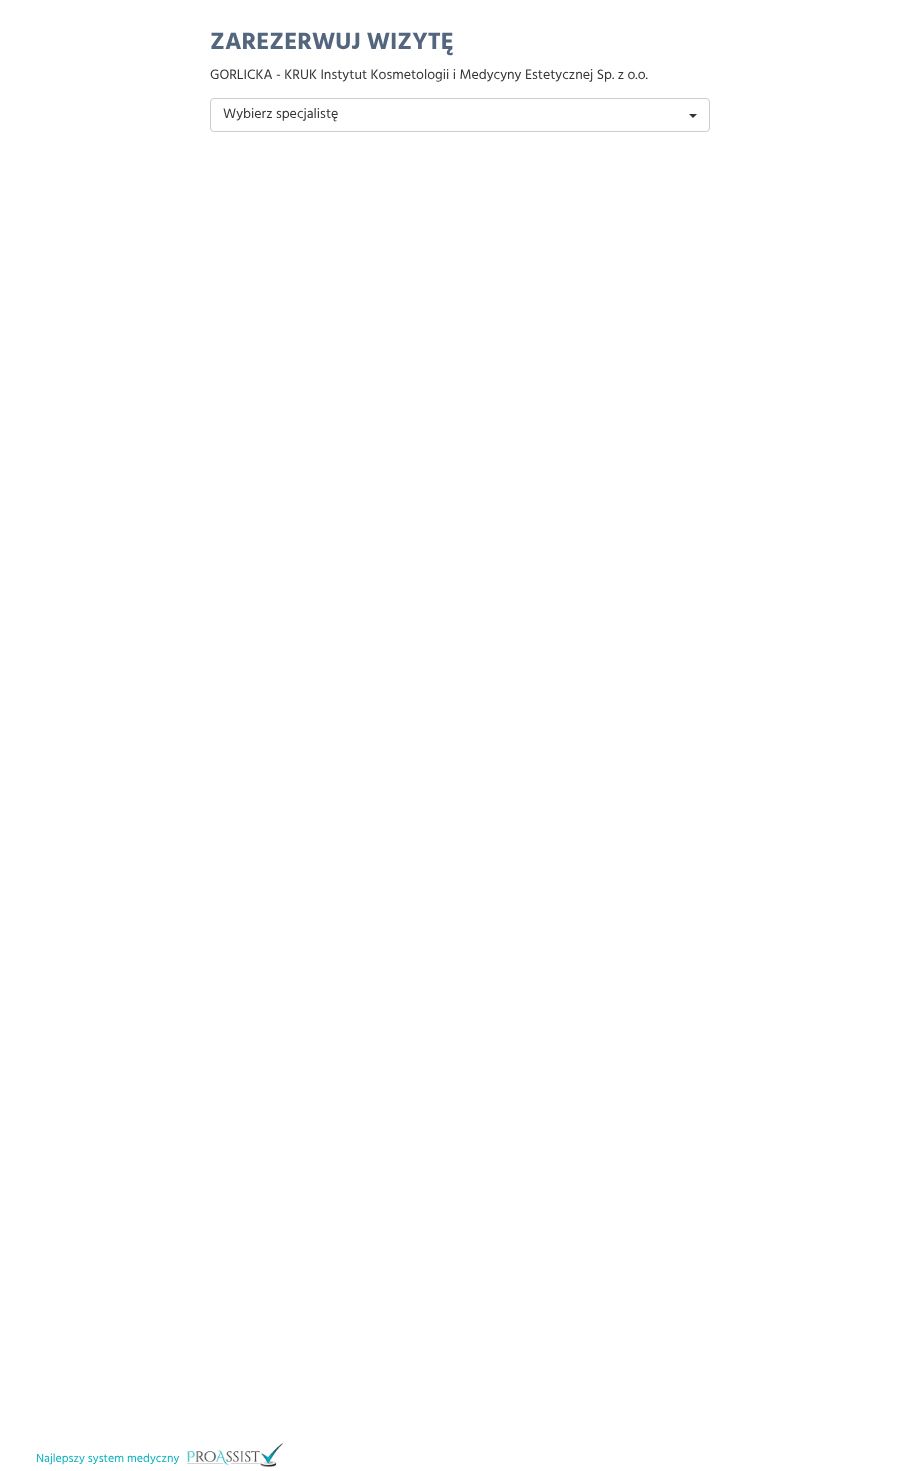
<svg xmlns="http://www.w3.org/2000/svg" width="920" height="1471">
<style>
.a{font:bold 24px Hind;fill:#54657e}
.b{font:14px Hind;fill:#333}
.c{font:12px Hind;fill:#0bb1bd}
</style>
<rect width="100%" height="100%" fill="#fff"/>
<rect fill="none" stroke="#ccc" x="210.5" y="98.5" width="499" height="33" rx="3.5"/>
<path fill="#333" d="M689 114h8l-4 4z"/>
<image href="1.png" x="186" y="1443" width="98" height="24"/>
<text class="a" x="210" y="49">ZAREZERWUJ WIZYTĘ</text>
<text class="b" x="210" y="79">GORLICKA - KRUK Instytut Kosmetologii i Medycyny Estetycznej Sp. z o.o.</text>
<text class="b" x="223" y="118">Wybierz specjalistę</text>
<text class="c" x="36" y="1462">Najlepszy system medyczny</text>
</svg>
